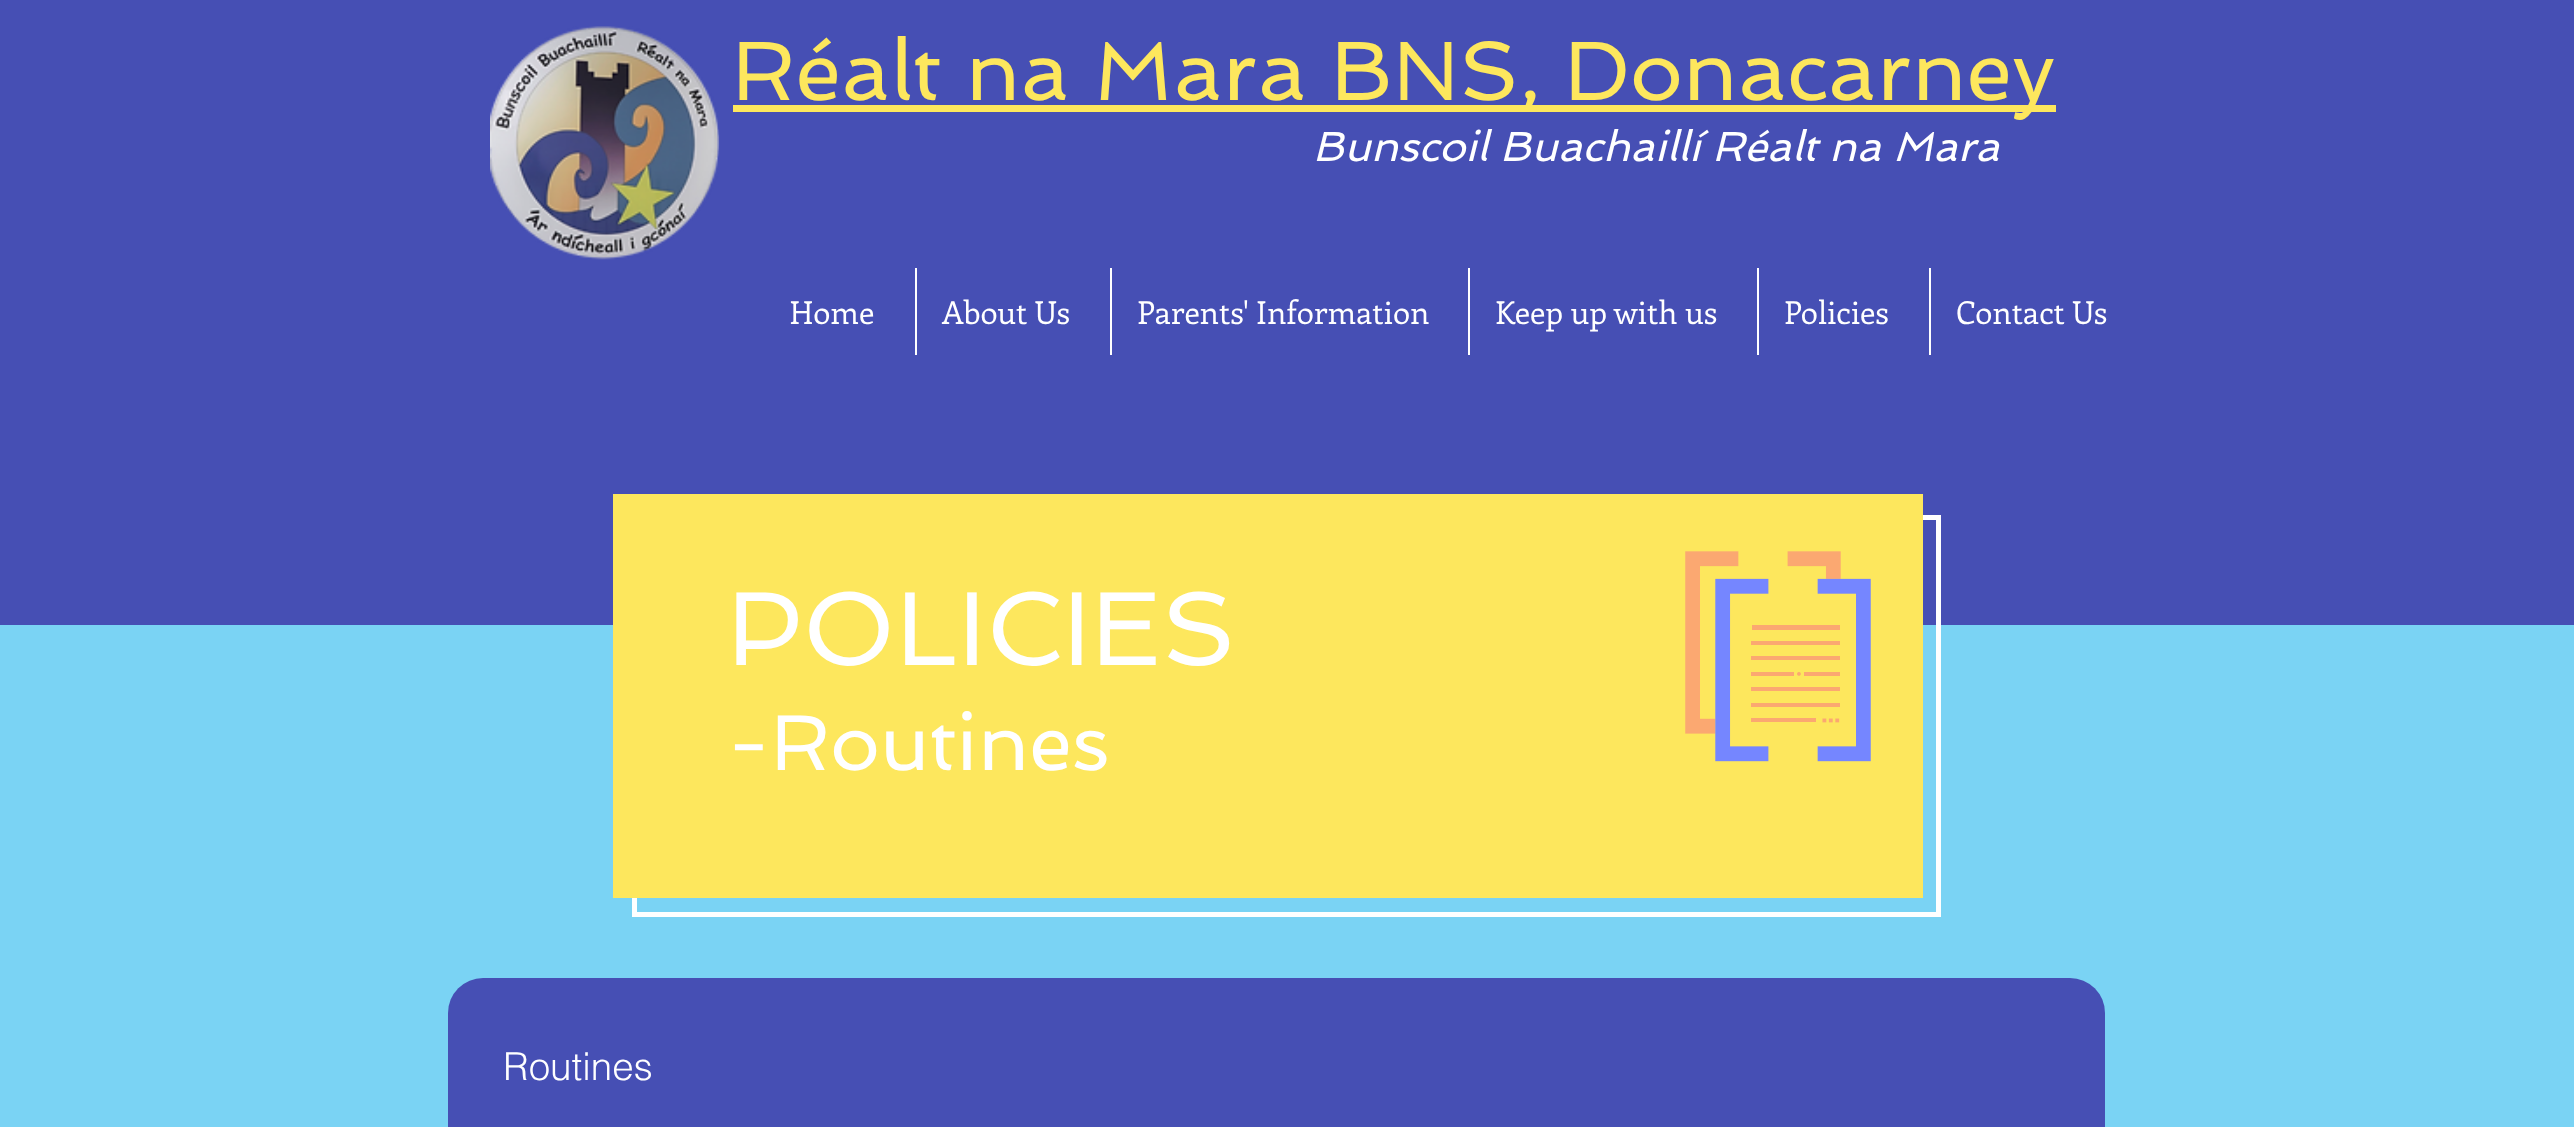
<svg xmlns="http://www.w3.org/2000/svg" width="2574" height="1127">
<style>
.a{font:84px Spinnaker;fill:#fde75d}
.b{font:italic 42px Spinnaker;fill:#fff}
.c{font:31.5px Enriqueta;fill:#fff}
.d{font:105px Spinnaker;fill:#fff}
.e{font:78.75px Spinnaker;fill:#fff}
.f{font:300 38.5px helvetica;fill:#fff}
</style>
<rect width="100%" height="100%" fill="#464fb4"/>
<image href="1.png" x="490" y="26" width="230" height="234"/>
<path fill="#fde75d" d="M733 105h1323v7H733z"/>
<path fill="#fff" d="M915 268h2v87H915z"/>
<path fill="#fff" d="M1110 268h2v87H1110z"/>
<path fill="#fff" d="M1468 268h2v87H1468z"/>
<path fill="#fff" d="M1757 268h2v87H1757z"/>
<path fill="#fff" d="M1929 268h2v87H1929z"/>
<path fill="#7ad3f4" d="M0 625h2574v502H0z"/>
<path fill="none" stroke="#fff" stroke-width="5" d="M634.5 517.5h1304v397H634.5z"/>
<path fill="#fde75d" d="M613 494h1310v404H613z"/>
<image href="2.png" x="1685" y="551" width="186" height="211"/>
<rect fill="#464fb4" x="448" y="978" width="1657" height="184" rx="35"/>
<text class="a" x="732" y="100">Réalt na Mara BNS, Donacarney</text>
<text class="b" x="1313" y="161">Bunscoil Buachaillí Réalt na Mara</text>
<text class="c" x="790" y="324">Home</text>
<text class="c" x="942" y="324">About Us</text>
<text class="c" x="1137" y="324">Parents' Information</text>
<text class="c" x="1495" y="324">Keep up with us</text>
<text class="c" x="1784" y="324">Policies</text>
<text class="c" x="1956" y="324">Contact Us</text>
<text class="d" x="727" y="665">POLICIES</text>
<text class="e" x="727" y="770">-Routines</text>
<text class="f" x="503" y="1080">Routines</text>
</svg>
